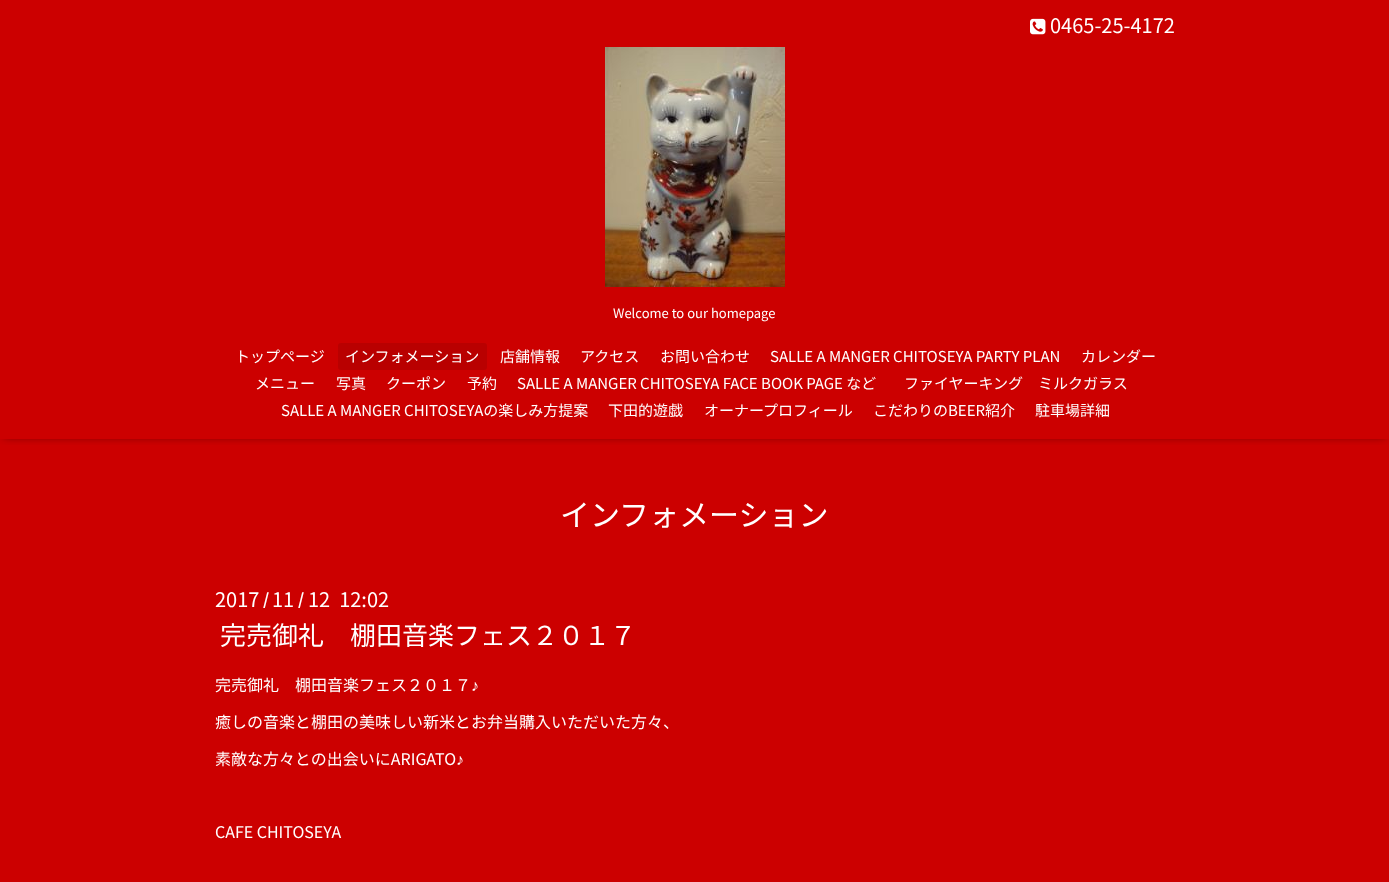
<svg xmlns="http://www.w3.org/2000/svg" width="1389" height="882">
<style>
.a{font:20px Noto Sans JP;fill:#fff}
.b{font:13px Noto Sans JP;fill:#fff}
.c{font:15px Noto Sans JP;fill:#fff}
.d{font:30px Noto Sans JP;fill:#fff}
.e{font:bold 16px Noto Sans JP;fill:#fff}
.f{font:26px Noto Sans JP;fill:#fff}
.g{font:16px Noto Sans JP;fill:#fff}
.h{font:16px Liberation Serif;fill:#fff}
</style>
<defs>
<clipPath id="clip1"><path d="M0 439h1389v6H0z"/></clipPath>
</defs>
<rect width="100%" height="100%" fill="#c00"/>
<g clip-path="url(#clip1)">
<path fill="#00000099" filter="blur(5px)" d="M4 5h1381v431H4z"/>
</g>
<image href="1.png" x="1030" y="18" width="16" height="17"/>
<image href="2.png" x="605" y="47" width="180" height="240"/>
<rect fill="#b90000" x="338" y="343" width="149" height="27" rx="3"/>
<text class="a" x="1050" y="33">0465-25-4172</text>
<text class="b" x="613" y="318">Welcome to our homepage</text>
<text class="c" x="235" y="362">トップページ</text>
<text class="c" x="345" y="362">インフォメーション</text>
<text class="c" x="500" y="362">店舗情報</text>
<text class="c" x="580" y="362">アクセス</text>
<text class="c" x="660" y="362">お問い合わせ</text>
<text class="c" x="770" y="362">SALLE A MANGER CHITOSEYA PARTY PLAN</text>
<text class="c" x="1081" y="362">カレンダー</text>
<text class="c" x="255" y="389">メニュー</text>
<text class="c" x="336" y="389">写真</text>
<text class="c" x="386" y="389">クーポン</text>
<text class="c" x="467" y="389">予約</text>
<text class="c" x="517" y="389">SALLE A MANGER CHITOSEYA FACE BOOK PAGE など</text>
<text class="c" x="904" y="389">ファイヤーキング　ミルクガラス</text>
<text class="c" x="281" y="416">SALLE A MANGER CHITOSEYAの楽しみ方提案</text>
<text class="c" x="608" y="416">下田的遊戯</text>
<text class="c" x="704" y="416">オーナープロフィール</text>
<text class="c" x="873" y="416">こだわりのBEER紹介</text>
<text class="c" x="1035" y="416">駐車場詳細</text>
<text class="d" x="560" y="526">インフォメーション</text>
<text class="a" x="215" y="607">2017</text>
<text class="e" x="263" y="605">/</text>
<text class="a" x="272" y="607">11</text>
<text class="e" x="298" y="605">/</text>
<text class="a" xml:space="preserve" x="308" y="607">12  12:02</text>
<text class="f" x="220" y="645">完売御礼　棚田音楽フェス２０１７</text>
<text class="g" x="215" y="691">完売御礼　棚田音楽フェス２０１７</text>
<text class="h" x="471" y="691">♪</text>
<text class="g" x="215" y="728">癒しの音楽と棚田の美味しい新米とお弁当購入いただいた方々、</text>
<text class="g" x="215" y="765">素敵な方々との出会いにARIGATO</text>
<text class="h" x="456" y="765">♪</text>
<text class="g" x="215" y="838">CAFE CHITOSEYA</text>
</svg>
